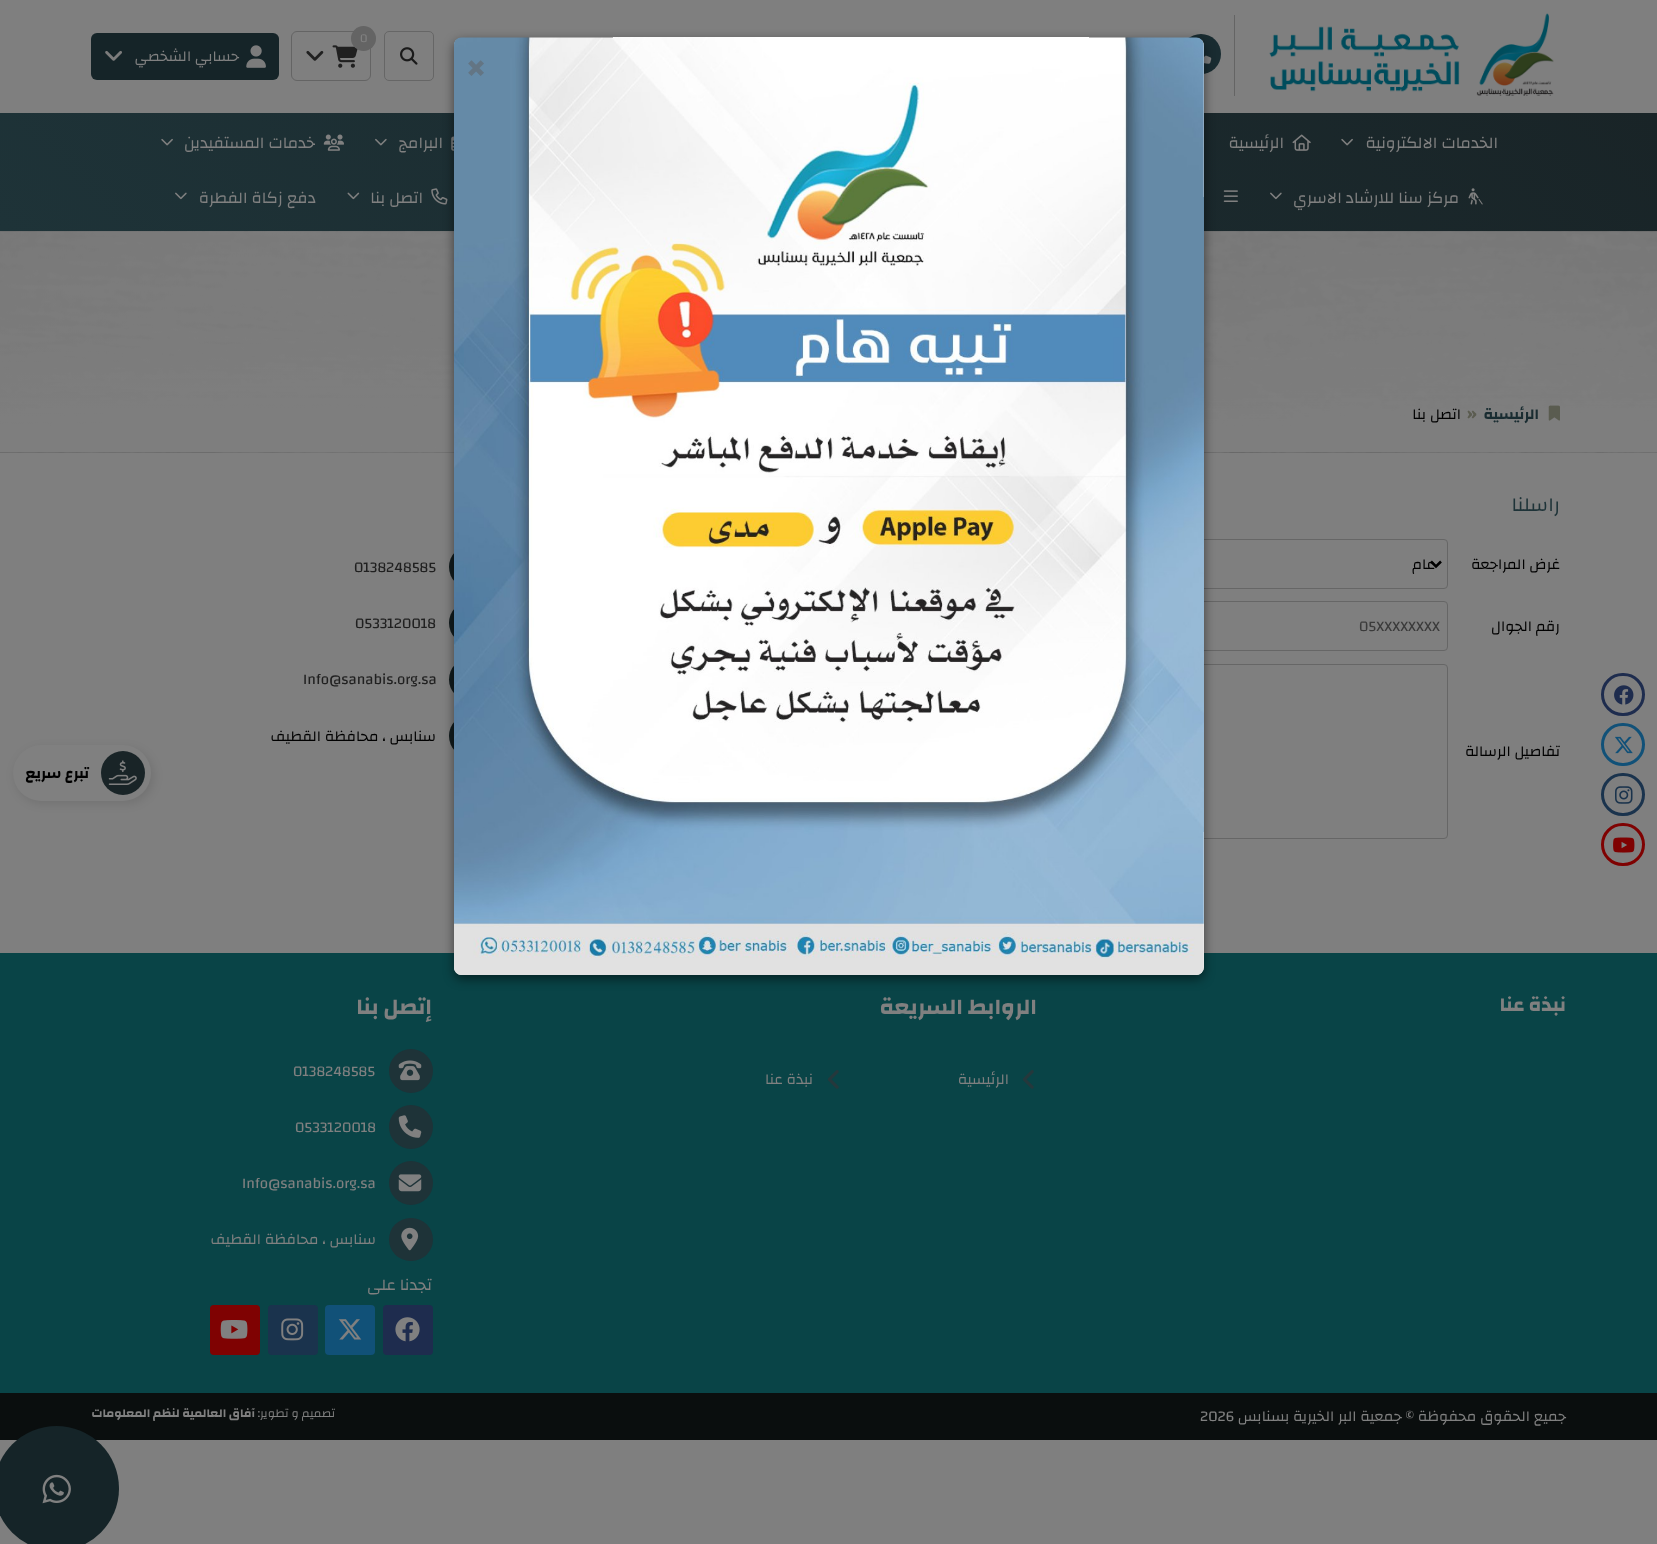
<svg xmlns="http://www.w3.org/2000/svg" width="1657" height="1544">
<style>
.a{font:12px Changa;fill:#808080}
.b{font:15px Changa;direction:rtl;fill:#808080}
.c{font:16.25px Changa;direction:rtl;fill:#808080}
.d{font:bold 38px Changa;fill:#637584}
.e{font:bold 15px Changa;direction:rtl;fill:#192c31}
.f{font:bold 18px Changa;fill:#5b5c50}
.g{font:15px Changa;direction:rtl;fill:#000}
.h{font:20px Changa;direction:rtl;fill:#1e3338}
.i{font:15px Changa;fill:#3b3b3b}
.j{font:15px Changa;fill:#202020}
.k{font:bold 15px Changa;direction:rtl;fill:#000}
.l{font:bold 20px Changa;direction:rtl;fill:#808080}
.m{font:bold 22.5px Changa;direction:rtl;fill:#808080}
.n{font:15px Changa;fill:#808080}
.o{font:12px Changa;direction:rtl;fill:#808080}
.p{font:bold 12px Changa;direction:rtl;fill:#808080}
</style>
<defs>
<linearGradient id="g1" gradientUnits="userSpaceOnUse" x1="385" y1="616" x2="1273" y2="-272"><stop offset="0" stop-color="#1e3338"/><stop offset="1" stop-color="#192427"/></linearGradient>
</defs>
<rect width="100%" height="100%" fill="#7f7f7f"/>
<image href="1.png" x="1269" y="13" width="285" height="83"/>
<path fill="#646464" d="M1234 15h1v81H1234z"/>
<circle fill="#192c31" cx="1201" cy="54" r="20"/>
<image href="2.png" x="1204" y="55" width="8" height="9"/>
<rect fill="none" stroke="#666" x="384.5" y="31.5" width="49" height="49" rx="4.5"/>
<image href="3.png" x="400" y="47" width="18" height="18"/>
<rect fill="none" stroke="#646464" x="291.5" y="31.5" width="79" height="49" rx="5.5"/>
<image href="4.png" x="332" y="45" width="26" height="23"/>
<circle fill="#646464" cx="363.5" cy="38.5" r="12.5"/>
<image href="5.png" x="306" y="50" width="18" height="11"/>
<rect fill="#152428" x="91" y="33" width="188" height="47" rx="6"/>
<image href="6.png" x="246" y="45" width="20" height="23"/>
<image href="7.png" x="105" y="50" width="17" height="11"/>
<path fill="url(#g1)" d="M0 113h1657v118H0z"/>
<image href="8.png" x="1341" y="138" width="12" height="8"/>
<image href="9.png" x="1292" y="134" width="19" height="17"/>
<image href="10.png" x="451" y="136" width="3" height="15"/>
<image href="11.png" x="375" y="138" width="12" height="8"/>
<image href="12.png" x="323" y="134" width="21" height="17"/>
<image href="13.png" x="161" y="138" width="12" height="8"/>
<image href="14.png" x="1468" y="188" width="15" height="17"/>
<image href="15.png" x="1270" y="192" width="12" height="8"/>
<image href="16.png" x="1223" y="190" width="15" height="12"/>
<image href="17.png" x="431" y="188" width="17" height="17"/>
<image href="18.png" x="347" y="192" width="13" height="8"/>
<image href="19.png" x="175" y="192" width="12" height="8"/>
<image href="21.png" x="0" y="231" width="1657" height="222"/>
<rect fill="none" stroke="#666" x="1055.5" y="539.5" width="392" height="49" rx="3.5"/>
<rect fill="none" stroke="#666" x="1055.5" y="601.5" width="392" height="49" rx="3.5"/>
<rect fill="none" stroke="#666" x="536.5" y="664.5" width="911" height="174" rx="3.5"/>
<circle fill="#121c1e" cx="471" cy="567" r="22"/>
<circle fill="#121c1e" cx="471" cy="623" r="22"/>
<rect fill="#121c1e" x="449" y="658" width="44" height="43" rx="21.5"/>
<circle fill="#121c1e" cx="471" cy="736" r="22"/>
<path fill="#094447" d="M0 953h1657v440H0z"/>
<rect fill="#00000080" filter="blur(5.5px)" x="454" y="41" width="750" height="938" rx="8"/>
<rect fill="#fff" x="454" y="38" width="750" height="937" rx="8"/>
<image href="20.png" x="454" y="37" width="750" height="938"/>
<image href="22.png" x="1548" y="405" width="12" height="16"/>
<rect fill="none" stroke="#1e2c4e" stroke-width="3" x="1602.5" y="674.5" width="41" height="40" rx="20"/>
<image href="23.png" x="1614" y="685" width="20" height="20"/>
<rect fill="none" stroke="#115178" stroke-width="3" x="1602.5" y="724.5" width="41" height="40" rx="20"/>
<image href="24.png" x="1615" y="736" width="18" height="18"/>
<rect fill="none" stroke="#1a334d" stroke-width="3" x="1602.5" y="774.5" width="41" height="40" rx="20"/>
<image href="25.png" x="1615" y="786" width="18" height="18"/>
<rect fill="none" stroke="#7f0202" stroke-width="3" x="1602.5" y="824.5" width="41" height="40" rx="20"/>
<image href="26.png" x="1613" y="837" width="22" height="16"/>
<path fill="none" stroke="#000" stroke-width="2.5" d="M1431 561.5l5 5l5-5"/>
<rect fill="#0000001a" filter="blur(5px)" x="15" y="748" width="139" height="56" rx="28"/>
<rect fill="#808080" x="13" y="745" width="138" height="56" rx="28"/>
<circle fill="#192427" cx="123" cy="773" r="22"/>
<image href="27.png" x="108" y="760" width="29" height="25"/>
<image href="28.png" x="1022" y="1070" width="12" height="19"/>
<image href="28.png" x="827" y="1070" width="12" height="19"/>
<circle fill="#1e3338" cx="411" cy="1071" r="22"/>
<image href="29.png" x="398" y="1060" width="24" height="21"/>
<circle fill="#1e3338" cx="411" cy="1127" r="22"/>
<image href="30.png" x="398" y="1115" width="24" height="23"/>
<circle fill="#1e3338" cx="411" cy="1183" r="22"/>
<image href="31.png" x="398" y="1174" width="24" height="18"/>
<rect fill="#1e3338" x="389" y="1218" width="44" height="43" rx="21.5"/>
<image href="32.png" x="401" y="1227" width="18" height="24"/>
<rect fill="#1e2c4e" x="383" y="1305" width="50" height="50" rx="4"/>
<image href="33.png" x="395" y="1317" width="25" height="25"/>
<rect fill="#115178" x="325" y="1305" width="50" height="50" rx="4"/>
<image href="34.png" x="338" y="1319" width="24" height="21"/>
<rect fill="#1a334d" x="268" y="1305" width="50" height="50" rx="4"/>
<image href="35.png" x="281" y="1318" width="23" height="23"/>
<rect fill="#7f0202" x="210" y="1305" width="50" height="50" rx="4"/>
<image href="36.png" x="220" y="1320" width="28" height="19"/>
<path fill="#0a0e0e" d="M0 1393h1657v47H0z"/>
<circle fill="#152428" cx="56.5" cy="1488.5" r="62.5"/>
<image href="37.png" x="42" y="1474" width="29" height="30"/>
<text class="a" x="360" y="42">0</text>
<text class="b" x="239" y="61">حسابي الشخصي</text>
<text class="c" x="1498" y="148">الخدمات الالكترونية</text>
<text class="c" x="1284" y="148">الرئيسية</text>
<text class="c" x="443" y="148">البرامج</text>
<text class="c" x="315" y="148">خدمات المستفيدين</text>
<text class="c" x="1459" y="203">مركز سنا للارشاد الاسري</text>
<text class="c" x="423" y="203">اتصل بنا</text>
<text class="c" x="316" y="203">دفع زكاة الفطرة</text>
<text class="d" x="466" y="80">×</text>
<text class="e" x="1539" y="419">الرئيسية</text>
<text class="f" x="1467" y="419">»</text>
<text class="g" x="1461" y="419">اتصل بنا</text>
<text class="h" x="1560" y="511">راسلنا</text>
<text class="g" x="1560" y="569">غرض المراجعة</text>
<text class="g" x="1435" y="569">عام</text>
<text class="g" x="1560" y="631">رقم الجوال</text>
<text class="i" x="1359" y="631">05XXXXXXXX</text>
<text class="g" x="1560" y="756">تفاصيل الرسالة</text>
<text class="j" x="354" y="572">0138248585</text>
<text class="j" x="355" y="628">0533120018</text>
<text class="j" x="303" y="684">Info@sanabis.org.sa</text>
<text class="g" x="436" y="741">سنابس ، محافظة القطيف</text>
<text class="k" x="89" y="778">تبرع سريع</text>
<text class="l" x="1566" y="1011">نبذة عنا</text>
<text class="m" x="1037" y="1014">الروابط السريعة</text>
<text class="b" x="1009" y="1084">الرئيسية</text>
<text class="b" x="813" y="1084">نبذة عنا</text>
<text class="m" x="432" y="1014">إتصل بنا</text>
<text class="n" x="293" y="1076">0138248585</text>
<text class="n" x="295" y="1132">0533120018</text>
<text class="n" x="242" y="1188">Info@sanabis.org.sa</text>
<text class="b" x="376" y="1244">سنابس ، محافظة القطيف</text>
<text class="c" x="432" y="1290">تجدنا على</text>
<text class="b" x="1566" y="1421">جميع الحقوق محفوظة © جمعية البر الخيرية بسنابس</text>
<text class="n" x="1200" y="1421">2026</text>
<text class="o" x="335" y="1417">تصميم و تطوير:</text>
<text class="p" x="255" y="1417">آفاق العالمية لنظم المعلومات</text>
</svg>
